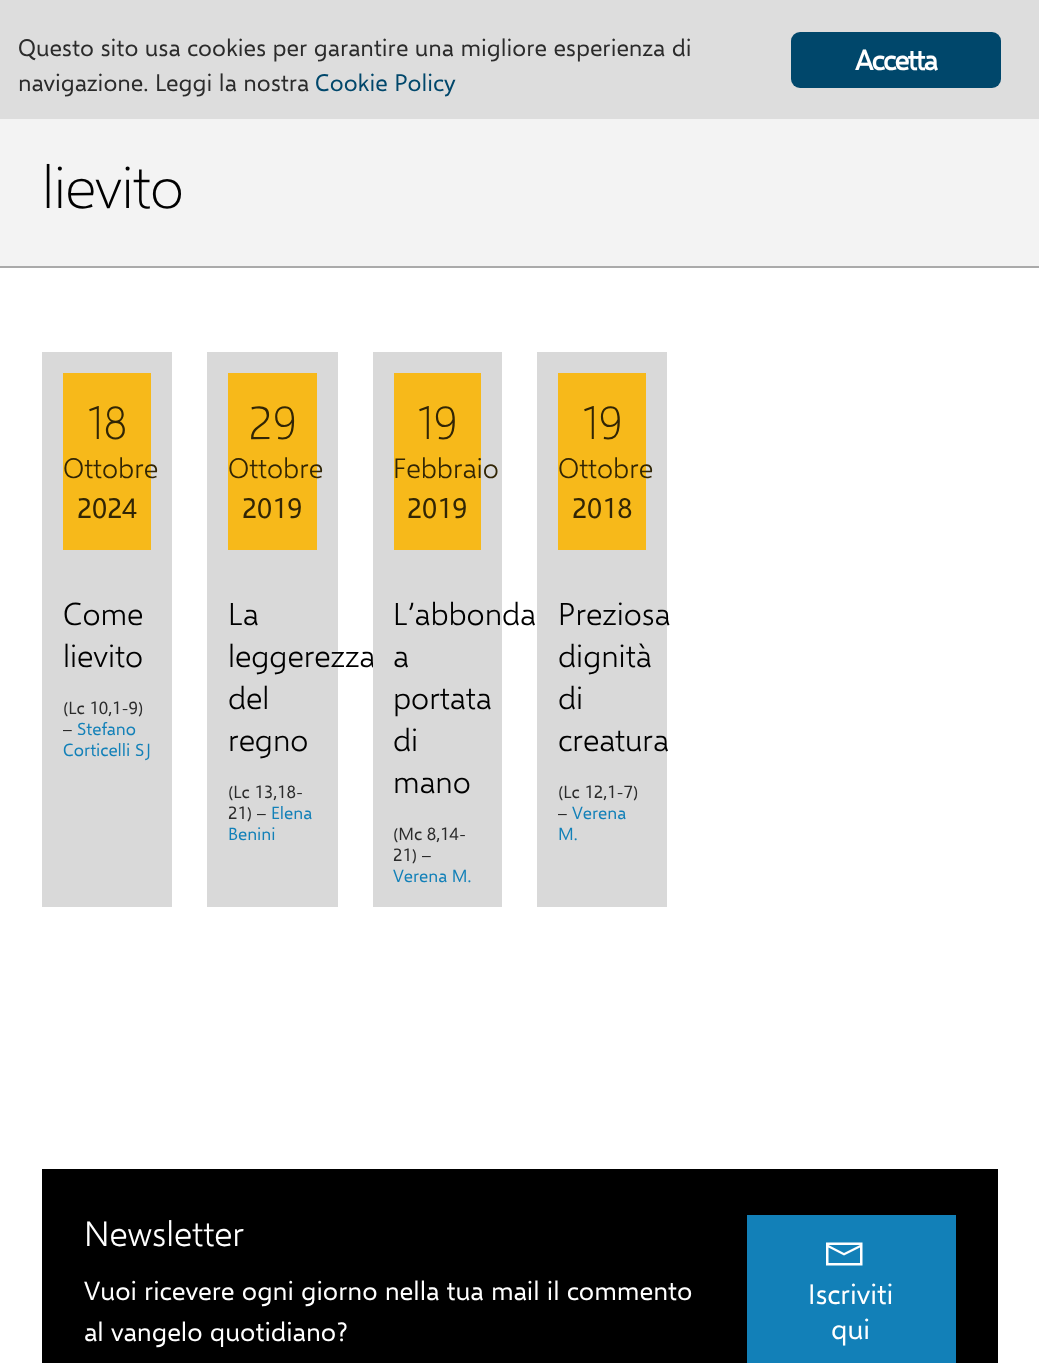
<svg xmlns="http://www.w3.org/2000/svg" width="1039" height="1363">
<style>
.a{font:23.8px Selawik;fill:#2b2b2b}
.b{font:23.8px Selawik;fill:#00476b}
.c{font:bold 28px Selawik;letter-spacing:-1.5px;fill:#fff}
.d{font:300 59.5px Selawik;letter-spacing:-0.5px;fill:#000}
.e{font:300 46px Selawik;fill:#312505}
.f{font:300 28px 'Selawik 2';fill:#312505}
.g{font:28px Selawik;fill:#312505}
.h{font:300 31.5px 'Selawik 2';fill:#000}
.i{font:17.5px Selawik;fill:#2b2b2b}
.j{font:17.5px Selawik;fill:#1280b8}
.k{font:300 35px 'Selawik 2';fill:#fff}
.l{font:26.25px Selawik;fill:#fff}
.m{font:28px Selawik;fill:#fff}
</style>
<rect width="100%" height="100%" fill="#fff"/>
<path fill="#ddd" d="M0 0h1039v119H0z"/>
<rect fill="#00476b" x="791" y="32" width="210" height="56" rx="9"/>
<path fill="#f3f3f3" d="M0 119h1039v147H0z"/>
<path fill="#aaa" d="M0 266h1039v2H0z"/>
<path fill="#d9d9d9" d="M42 352h130v555H42z"/>
<path fill="#f7b91a" d="M63 373h88v177H63z"/>
<path fill="#d9d9d9" d="M207 352h131v555H207z"/>
<path fill="#f7b91a" d="M228 373h89v177H228z"/>
<path fill="#d9d9d9" d="M537 352h130v555H537z"/>
<path fill="#f7b91a" d="M558 373h88v177H558z"/>
<path fill="#000" d="M42 1169h956v194H42z"/>
<path fill="#1280b8" d="M747 1215h209v148H747z"/>
<path fill="#fff" d="M826 1242.5h36.5v23h-36.5zm34 2.5h-31.5l15.5 8zm-31.5 18h31.5v-15.5l-16 8l-15.5-8z"/>
<text class="a" x="18" y="56">Questo sito usa cookies per garantire una migliore esperienza di</text>
<text class="a" x="18" y="91">navigazione. Leggi la nostra</text>
<text class="b" x="315" y="91">Cookie Policy</text>
<text class="c" x="855" y="70">Accetta</text>
<text class="d" x="42" y="208">lievito</text>
<text class="e" x="87" y="439">18</text>
<text class="f" x="63" y="478">Ottobre</text>
<text class="g" x="77" y="518">2024</text>
<text class="h" x="63" y="625">Come</text>
<text class="h" x="63" y="667">lievito</text>
<text class="i" x="63" y="714">(Lc 10,1-9)</text>
<text class="i" x="63" y="735">–</text>
<text class="j" x="77" y="735">Stefano</text>
<text class="j" x="63" y="756">Corticelli SJ</text>
<text class="e" x="249" y="439">29</text>
<text class="f" x="228" y="478">Ottobre</text>
<text class="g" x="242" y="518">2019</text>
<text class="h" x="228" y="625">La</text>
<text class="h" x="228" y="667">leggerezza</text>
<text class="h" x="228" y="709">del</text>
<text class="h" x="228" y="751">regno</text>
<text class="i" x="228" y="798">(Lc 13,18-</text>
<text class="i" x="228" y="819">21) –</text>
<text class="j" x="271" y="819">Elena</text>
<text class="j" x="228" y="840">Benini</text>
<path fill="#d9d9d9" d="M373 352h129v555H373z"/>
<path fill="#f7b91a" d="M394 373h87v177H394z"/>
<text class="e" x="417" y="439">19</text>
<text class="f" x="393" y="478">Febbraio</text>
<text class="g" x="407" y="518">2019</text>
<text class="h" x="393" y="625">L’abbonda</text>
<text class="h" x="393" y="667">a</text>
<text class="h" x="393" y="709">portata</text>
<text class="h" x="393" y="751">di</text>
<text class="h" x="393" y="793">mano</text>
<text class="i" x="393" y="840">(Mc 8,14-</text>
<text class="i" x="393" y="861">21) –</text>
<text class="j" x="393" y="882">Verena M.</text>
<text class="e" x="582" y="439">19</text>
<text class="f" x="558" y="478">Ottobre</text>
<text class="g" x="572" y="518">2018</text>
<text class="h" x="558" y="625">Preziosa</text>
<text class="h" x="558" y="667">dignità</text>
<text class="h" x="558" y="709">di</text>
<text class="h" x="558" y="751">creatura</text>
<text class="i" x="558" y="798">(Lc 12,1-7)</text>
<text class="i" x="558" y="819">–</text>
<text class="j" x="572" y="819">Verena</text>
<text class="j" x="558" y="840">M.</text>
<text class="k" x="84" y="1246">Newsletter</text>
<text class="l" x="84" y="1300">Vuoi ricevere ogni giorno nella tua mail il commento</text>
<text class="l" x="84" y="1341">al vangelo quotidiano?</text>
<text class="m" x="808" y="1304">Iscriviti</text>
<text class="m" x="831" y="1339">qui</text>
</svg>
